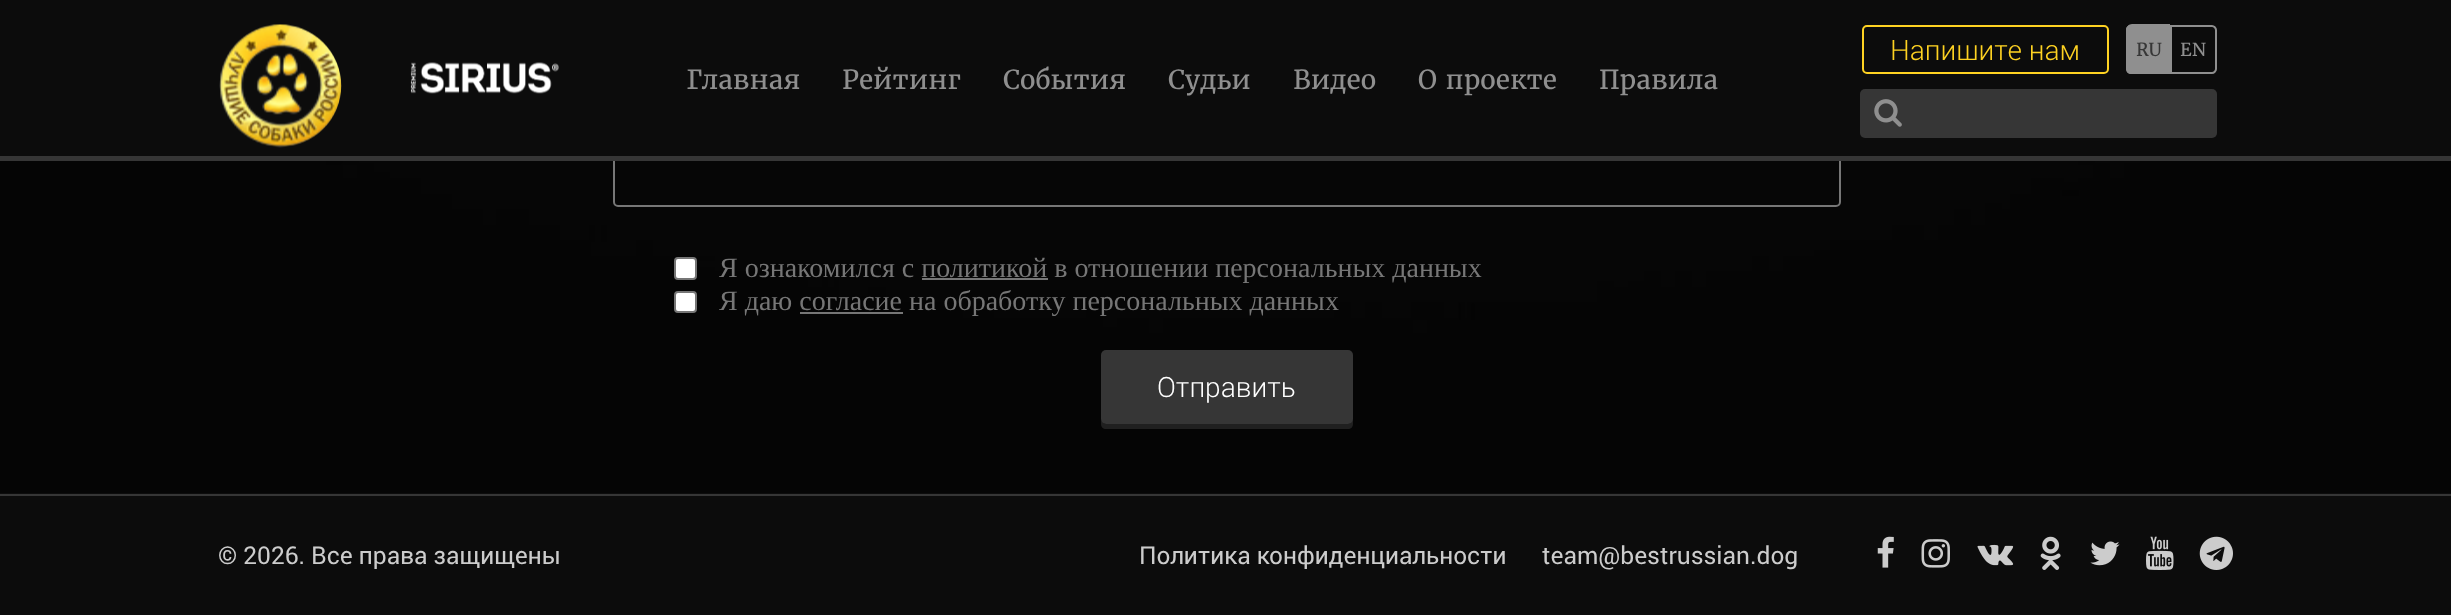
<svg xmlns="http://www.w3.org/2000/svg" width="2451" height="615">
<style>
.a{font:300 28px Roboto;fill:#fed222}
.b{font:18px Merriweather;fill:#363636}
.c{font:18px Merriweather;fill:#8f8f8f}
.d{font:26.25px Merriweather;fill:#8f8f8f}
.e{font:28px Liberation Serif;fill:#767676}
.f{font:300 28px Roboto;fill:#fff}
.g{font:24.5px Roboto;fill:#ccc}
</style>
<rect width="100%" height="100%" fill="#0c0c0c"/>
<image href="4.png" x="0" y="161" width="2451" height="332"/>
<rect fill="none" stroke="#767676" stroke-width="2" x="614" y="-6" width="1226" height="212" rx="4"/>
<path fill="#0c0c0c" d="M613 0h1228v156H613z"/>
<path fill="#363636" d="M0 156h2451v5H0z"/>
<image href="1.png" x="219" y="24" width="123" height="124"/>
<rect fill="none" stroke="#fed222" stroke-width="2" x="1863" y="26" width="245" height="47" rx="4"/>
<rect fill="#363636" x="1860" y="89" width="357" height="49" rx="5"/>
<image href="2.png" x="1874" y="99" width="28" height="28"/>
<path fill="#8f8f8f" d="M2131 25h39v49h-39c-3 0-5-2-5-5v-39c0-3 2-5 5-5z"/>
<path fill="#8f8f8f" fill-rule="evenodd" d="M2132 24h38v50h-38c-3 0-6-3-6-6v-38c0-3 3-6 6-6zm0 2h38v46h-38c-2 0-4-2-4-4v-38c0-2 2-4 4-4z"/>
<path fill="none" stroke="#8f8f8f" stroke-width="2" d="M2171 26h41c2 0 4 2 4 4v39c0 2-2 4-4 4h-41z"/>
<image href="3.png" x="410" y="62" width="149" height="32"/>
<rect fill="#fff" stroke="#767676" stroke-width="2" x="675" y="258" width="21" height="21" rx="3"/>
<path fill="#767676" d="M922 278h126v2H922z"/>
<rect fill="#fff" stroke="#767676" stroke-width="2" x="675" y="292" width="21" height="20" rx="3"/>
<path fill="#767676" d="M800 312h103v2H800z"/>
<path fill="#202020" d="M1101 420v4c0 3 2 5 5 5h242c3 0 5-2 5-5v-66v60c0 3-3 6-5 6h-242c-2 0-4-2-5-4z"/>
<rect fill="#363636" x="1101" y="350" width="252" height="74" rx="5"/>
<path fill="#363636" d="M0 494h2451v2H0z"/>
<image href="5.png" x="1877" y="536" width="17" height="32"/>
<image href="6.png" x="1921" y="539" width="29" height="29"/>
<image href="7.png" x="1977" y="544" width="37" height="22"/>
<image href="8.png" x="2040" y="536" width="21" height="34"/>
<image href="9.png" x="2090" y="541" width="30" height="25"/>
<image href="10.png" x="2146" y="536" width="28" height="34"/>
<image href="11.png" x="2199" y="536" width="34" height="34"/>
<text class="a" x="1890" y="60">Напишите нам</text>
<text class="b" x="2136" y="56">RU</text>
<text class="c" x="2180" y="56">EN</text>
<text class="d" x="687" y="89">Главная</text>
<text class="d" x="842" y="89">Рейтинг</text>
<text class="d" x="1003" y="89">События</text>
<text class="d" x="1168" y="89">Судьи</text>
<text class="d" x="1293" y="89">Видео</text>
<text class="d" x="1418" y="89">О проекте</text>
<text class="d" x="1599" y="89">Правила</text>
<text class="e" x="719" y="277">Я ознакомился с политикой в отношении персональных данных</text>
<text class="e" x="719" y="310">Я даю согласие на обработку персональных данных</text>
<text class="f" x="1157" y="397">Отправить</text>
<text class="g" x="218" y="564">© 2026. Все права защищены</text>
<text class="g" x="1139" y="564">Политика конфиденциальности</text>
<text class="g" x="1542" y="564">team@bestrussian.dog</text>
</svg>
